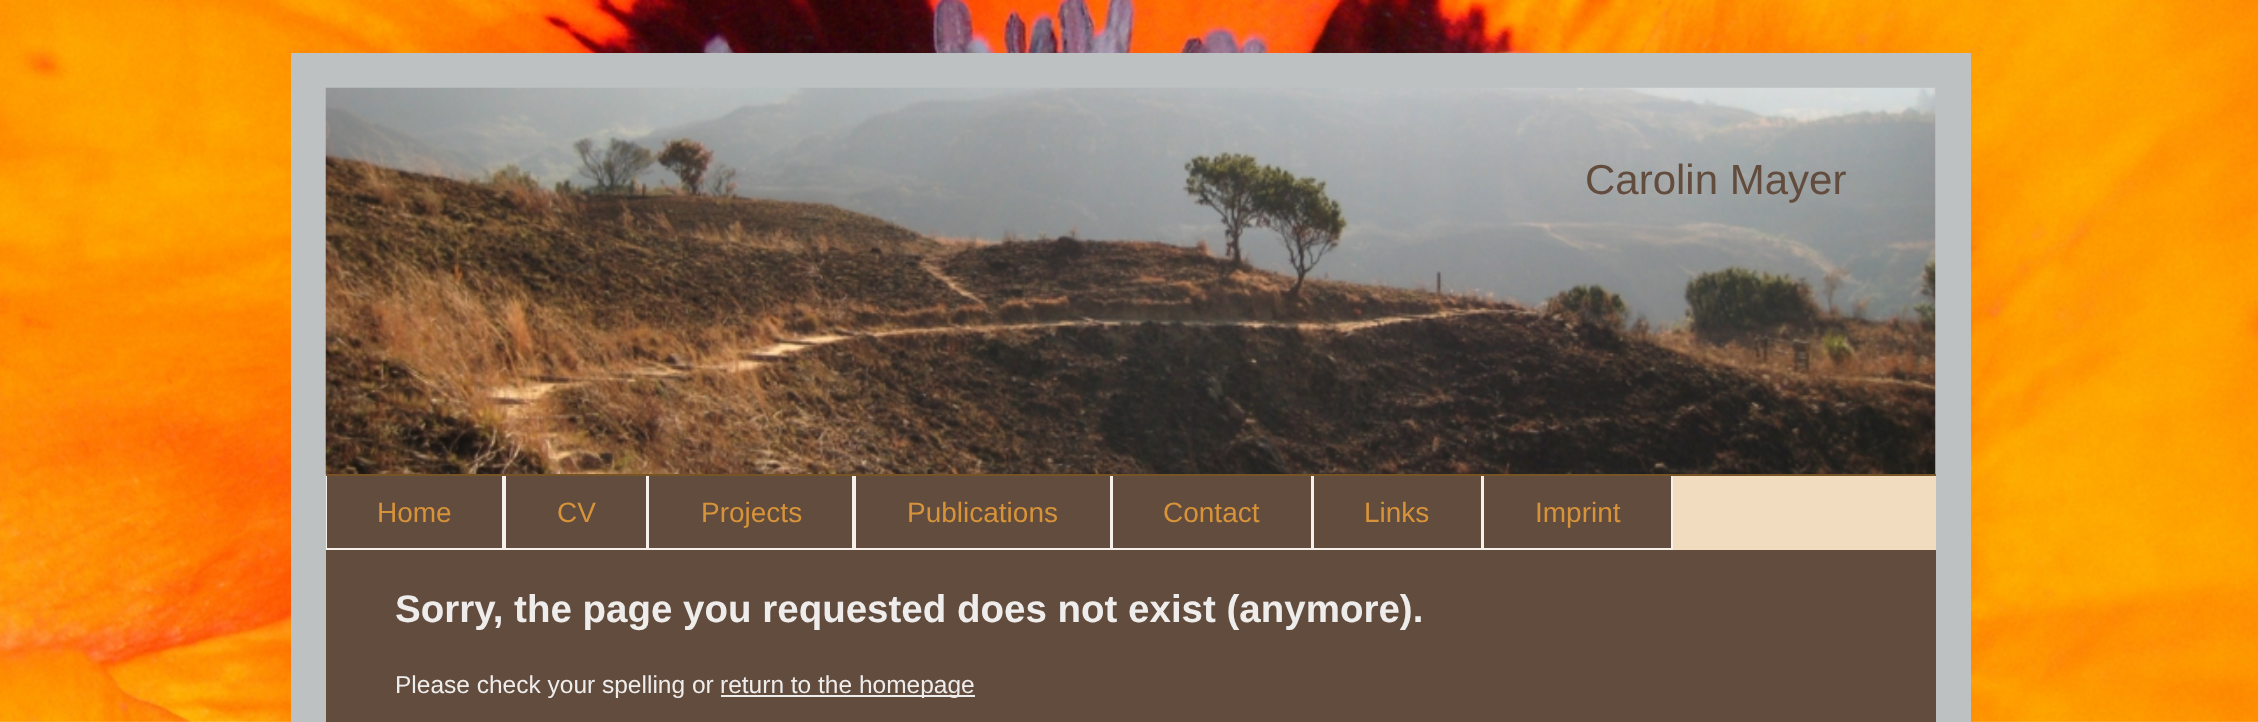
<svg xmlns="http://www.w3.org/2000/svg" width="2258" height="722">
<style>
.a{font:42px Liberation Sans;fill:#624c3d}
.b{font:28px Liberation Sans;fill:#d7933a}
.c{font:bold 38.5px Liberation Sans;fill:#efedec}
.d{font:24.5px Liberation Sans;fill:#efedec}
</style>
<rect width="100%" height="100%" fill="#fff"/>
<image href="1.png" x="0" y="0" width="2258" height="722"/>
<path fill="#bdc1c1" d="M291 53h1680v669H291z"/>
<image href="2.png" x="325" y="87" width="1611" height="387"/>
<path fill="#f2dcbf" d="M1673 476h263v74H1673z"/>
<path fill="#775426" d="M326 474h1610v2H326z"/>
<path fill="#f5f0ea" d="M326 476h1347v74H326z"/>
<path fill="#624c3d" d="M327 476h175v72H327z"/>
<path fill="#624c3d" d="M506 476h140v72H506z"/>
<path fill="#624c3d" d="M649 476h203v72H649z"/>
<path fill="#624c3d" d="M856 476h254v72H856z"/>
<path fill="#624c3d" d="M1113 476h198v72H1113z"/>
<path fill="#624c3d" d="M1314 476h167v72H1314z"/>
<path fill="#624c3d" d="M1484 476h187v72H1484z"/>
<path fill="#624c3d" d="M326 550h1610v172H326z"/>
<path fill="#efedec" d="M721 695h254v2H721z"/>
<text class="a" x="1585" y="194">Carolin Mayer</text>
<text class="b" x="377" y="522">Home</text>
<text class="b" x="557" y="522">CV</text>
<text class="b" x="701" y="522">Projects</text>
<text class="b" x="907" y="522">Publications</text>
<text class="b" x="1163" y="522">Contact</text>
<text class="b" x="1364" y="522">Links</text>
<text class="b" x="1535" y="522">Imprint</text>
<text class="c" x="395" y="622">Sorry, the page you requested does not exist (anymore).</text>
<text class="d" x="395" y="693">Please check your spelling or</text>
<text class="d" x="720" y="693">return to the homepage</text>
</svg>
